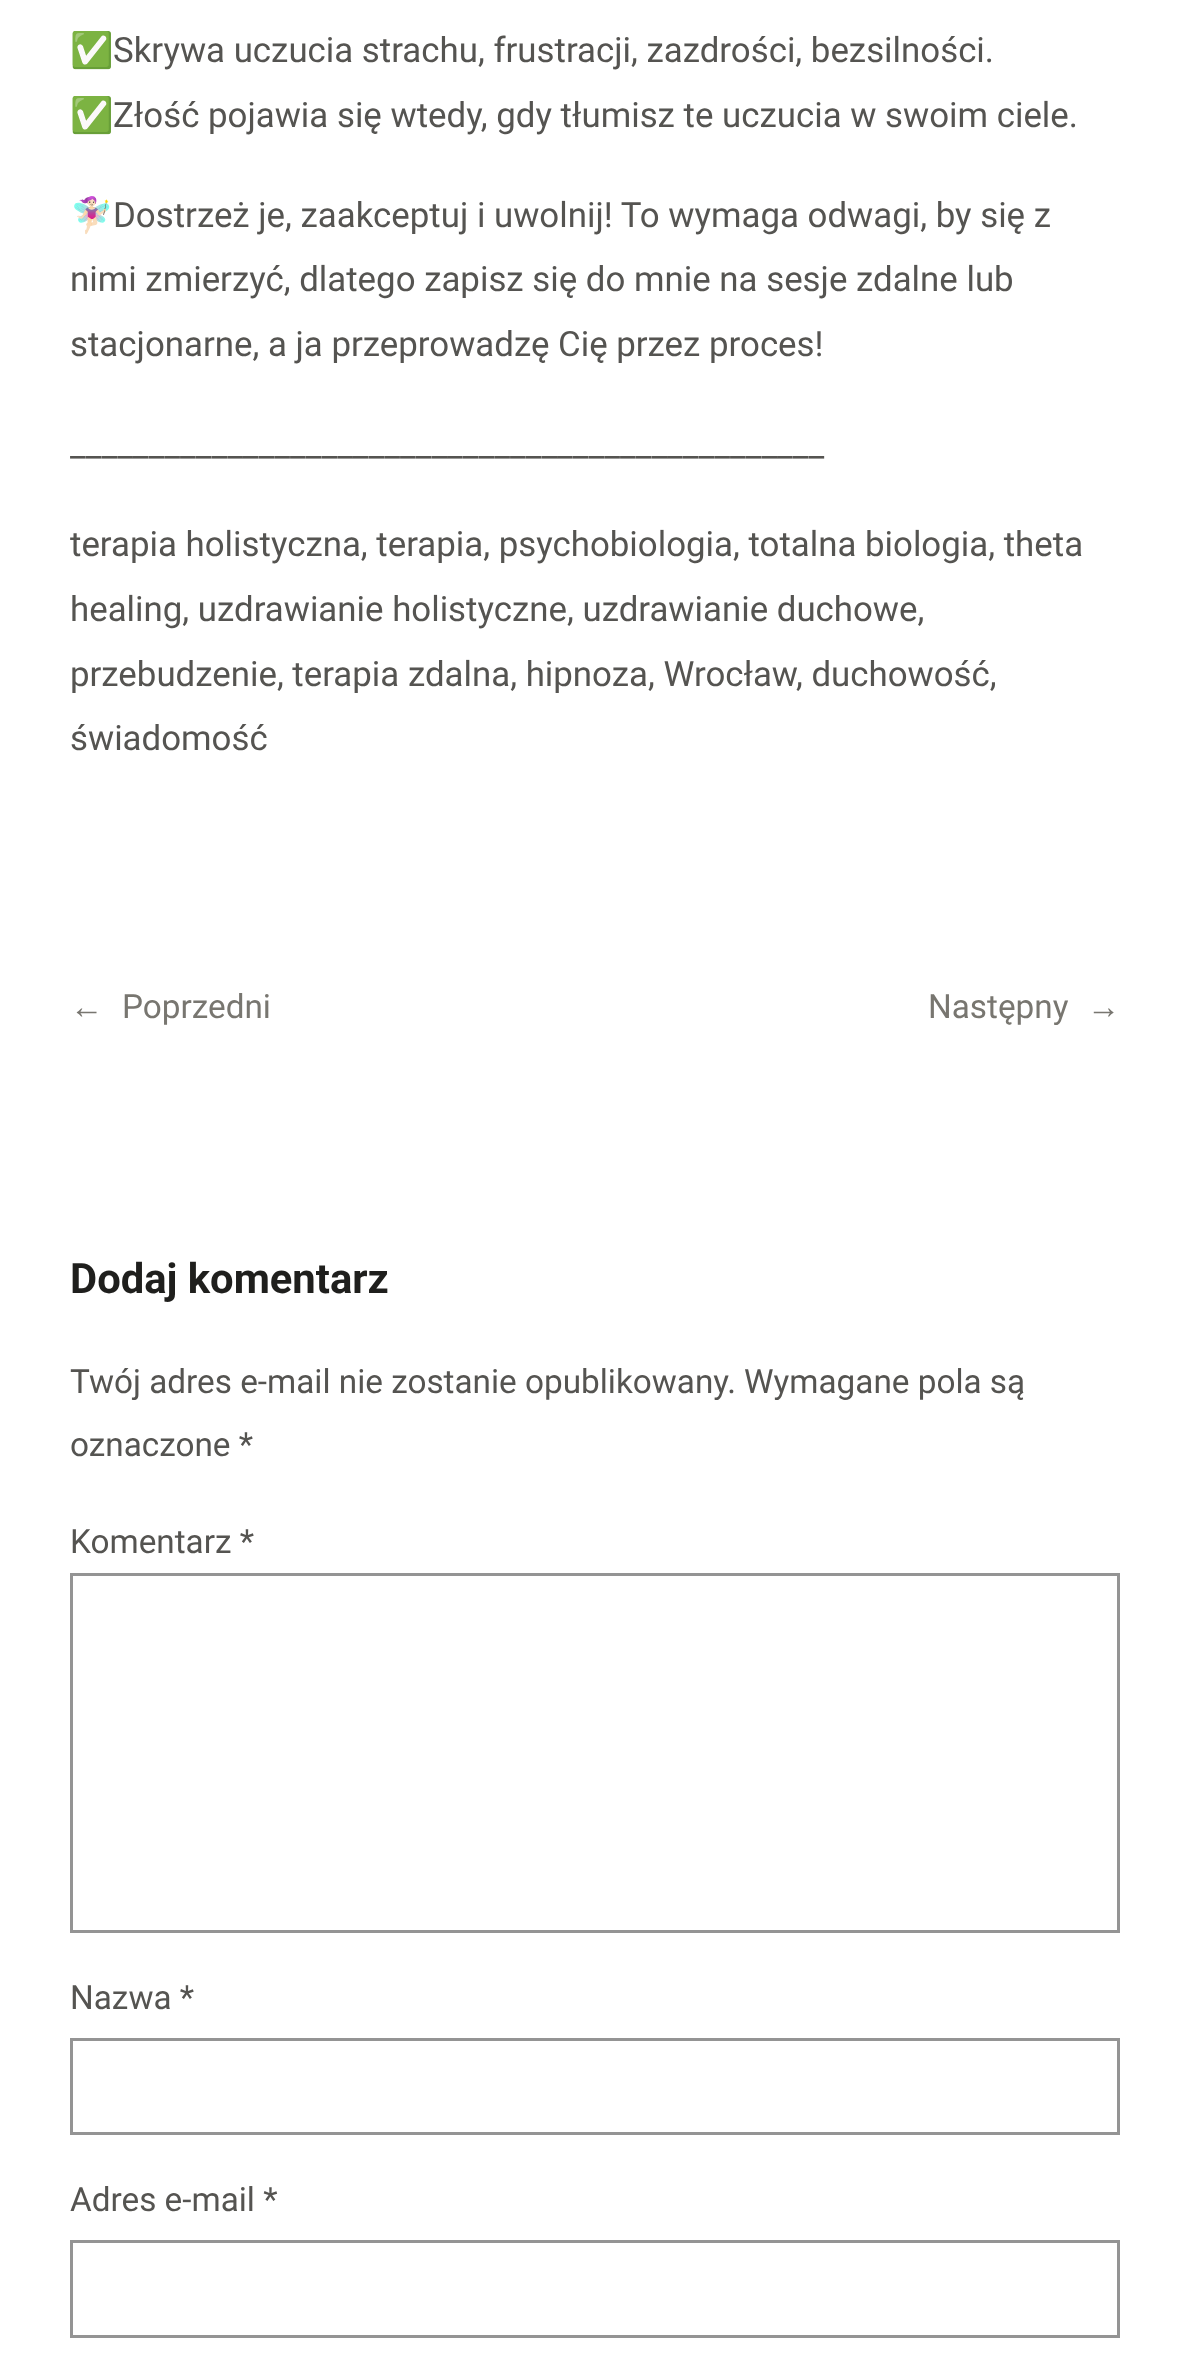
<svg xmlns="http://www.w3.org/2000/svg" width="1188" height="2372">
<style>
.a{font:34.85px Noto Color Emoji;fill:#555451}
.b{font:34.85px Roboto;fill:#555451}
.c{font:33.3px Liberation Sans;fill:#787670}
.d{font:33.3px Roboto;fill:#787670}
.e{font:bold 41.75px Roboto;fill:#1f1f1d}
.f{font:33.3px Roboto;fill:#555451}
</style>
<rect width="100%" height="100%" fill="#fff"/>
<path fill="none" stroke="#949494" stroke-width="3" d="M71.5 1574.5h1047v357H71.5z"/>
<path fill="none" stroke="#949494" stroke-width="3" d="M71.5 2039.5h1047v94H71.5z"/>
<path fill="none" stroke="#949494" stroke-width="3" d="M71.5 2241.5h1047v95H71.5z"/>
<text class="a" x="70" y="62">✅</text>
<text class="b" x="113" y="62">Skrywa uczucia strachu, frustracji, zazdrości, bezsilności.</text>
<text class="a" x="70" y="127">✅</text>
<text class="b" x="113" y="127">Złość pojawia się wtedy, gdy tłumisz te uczucia w swoim ciele.</text>
<text class="a" x="70" y="227">🧚🏻‍♀️</text>
<text class="b" x="113" y="227">Dostrzeż je, zaakceptuj i uwolnij! To wymaga odwagi, by się z</text>
<text class="b" x="70" y="291">nimi zmierzyć, dlatego zapisz się do mnie na sesje zdalne lub</text>
<text class="b" x="70" y="356">stacjonarne, a ja przeprowadzę Cię przez proces!</text>
<text class="b" x="70" y="456">________________________________________________</text>
<text class="b" x="70" y="556">terapia holistyczna, terapia, psychobiologia, totalna biologia, theta</text>
<text class="b" x="70" y="621">healing, uzdrawianie holistyczne, uzdrawianie duchowe,</text>
<text class="b" x="70" y="686">przebudzenie, terapia zdalna, hipnoza, Wrocław, duchowość,</text>
<text class="b" x="70" y="750">świadomość</text>
<text class="c" x="70" y="1018">←</text>
<text class="d" x="122" y="1018">Poprzedni</text>
<text class="d" x="928" y="1018">Następny</text>
<text class="c" x="1087" y="1018">→</text>
<text class="e" x="70" y="1293">Dodaj komentarz</text>
<text class="f" x="70" y="1393">Twój adres e-mail nie zostanie opublikowany.</text>
<text class="f" x="744" y="1393">Wymagane pola są</text>
<text class="f" x="70" y="1456">oznaczone *</text>
<text class="f" x="70" y="1553">Komentarz *</text>
<text class="f" x="70" y="2009">Nazwa *</text>
<text class="f" x="70" y="2211">Adres e-mail *</text>
</svg>
